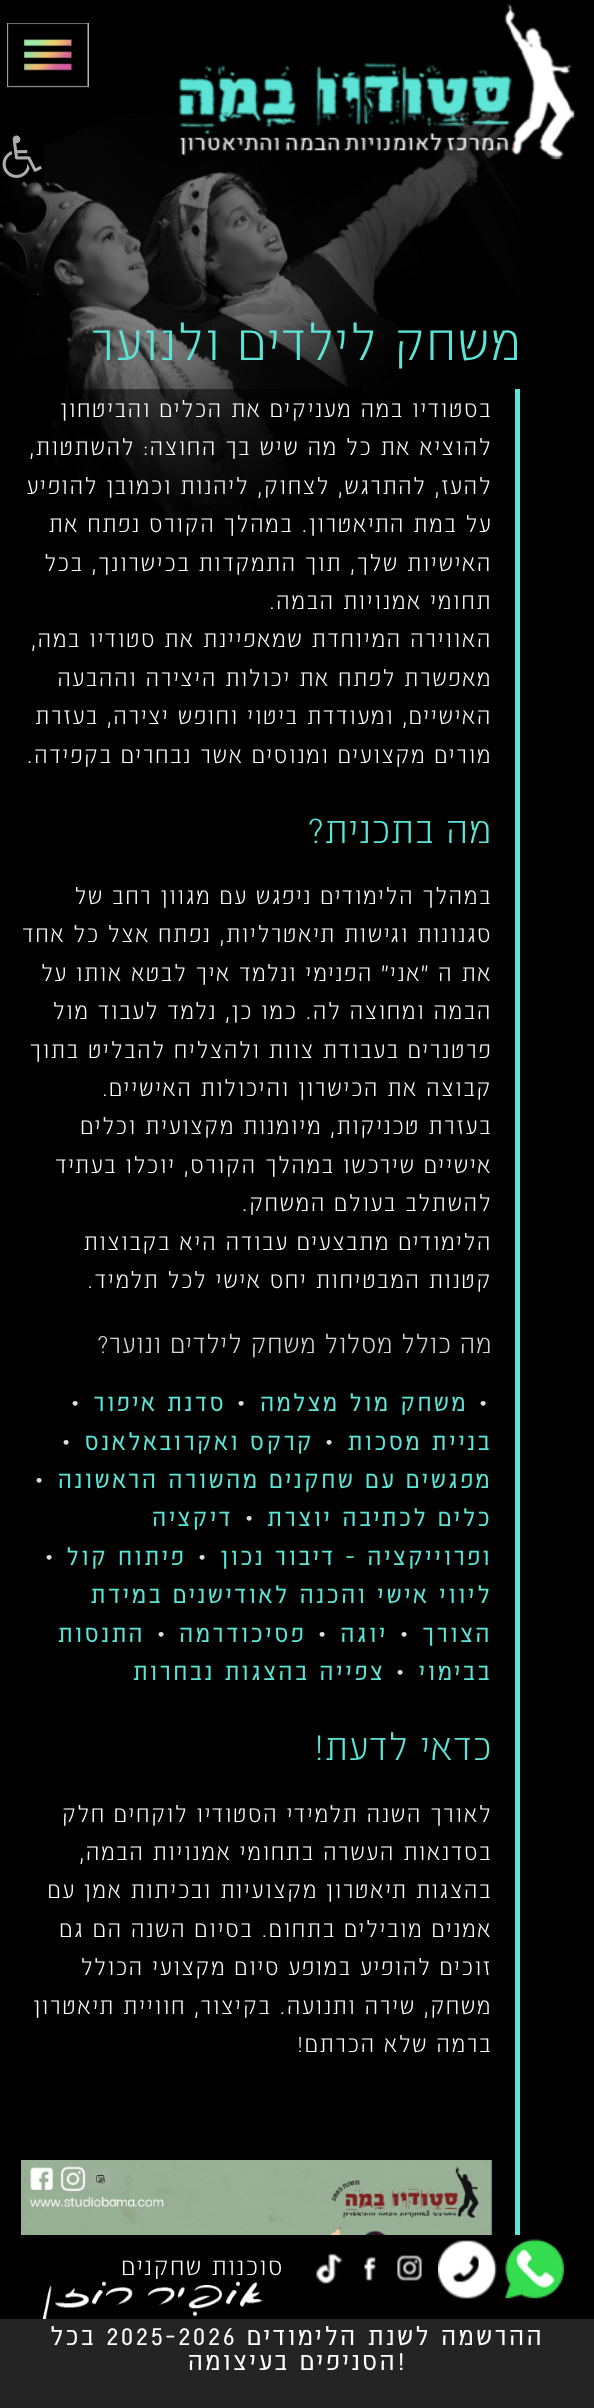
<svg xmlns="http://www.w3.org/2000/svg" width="594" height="2408">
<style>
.a{font:52.5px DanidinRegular;letter-spacing:1.5px;direction:rtl;fill:#5ce5d6}
.b{font:24px DanidinRegular;letter-spacing:1.5px;direction:rtl;fill:#fff}
.c{font:39px DanidinRegular;letter-spacing:0.75px;direction:rtl;fill:#5ce5d6}
.d{font:27px DanidinRegular;letter-spacing:0.75px;direction:rtl;fill:#d8d8d8}
.e{font:bold 24px DanidinRegular;letter-spacing:3px;fill:#dedede}
.f{font:bold 24px DanidinRegular;letter-spacing:3px;direction:rtl;fill:#5ce5d6}
.g{font:25.5px DanidinRegular;letter-spacing:1.5px;direction:rtl;fill:#fff}
.h{font:bold 25.5px DanidinRegular;letter-spacing:3px;direction:rtl;fill:#fff}
.i{font:bold 25.5px DanidinRegular;letter-spacing:3px;fill:#fff}
</style>
<rect width="100%" height="100%" fill="#000"/>
<image href="1.png" x="0" y="112" width="520" height="425"/>
<image href="2.png" x="7" y="23" width="82" height="65"/>
<path fill="#000" d="M3 146h41v34H3z"/>
<image href="3.png" x="2" y="135" width="40" height="43"/>
<image href="4.png" x="178" y="4" width="397" height="156"/>
<path fill="#00000080" d="M51 389h311v147H51z"/>
<path fill="#5ce5d6" d="M515 389h5v1846H515z"/>
<image href="5.png" x="21" y="2160" width="471" height="75"/>
<image href="6.png" x="505" y="2239" width="59" height="60"/>
<image href="7.png" x="438" y="2240" width="59" height="59"/>
<image href="8.png" x="397" y="2255" width="25" height="26"/>
<image href="9.png" x="364" y="2256" width="12" height="25"/>
<image href="10.png" x="316" y="2253" width="27" height="31"/>
<image href="11.png" x="40" y="2281" width="223" height="38"/>
<path fill="#242424" d="M0 2319h594v89H0z"/>
<text class="a" x="669" y="325" transform="rotate(90 669 325)">לימודי</text>
<text class="a" x="522" y="360">משחק לילדים ולנוער</text>
<text class="b" x="492" y="417">בסטודיו במה מעניקים את הכלים והביטחון</text>
<text class="b" x="492" y="455">להוציא את כל מה שיש בך החוצה: להשתטות,</text>
<text class="b" x="492" y="494">להעז, להתרגש, לצחוק, ליהנות וכמובן להופיע</text>
<text class="b" x="492" y="532">על במת התיאטרון. במהלך הקורס נפתח את</text>
<text class="b" x="492" y="571">האישיות שלך, תוך התמקדות בכישרונך, בכל</text>
<text class="b" x="492" y="609">תחומי אמנויות הבמה.</text>
<text class="b" x="492" y="647">האווירה המיוחדת שמאפיינת את סטודיו במה,</text>
<text class="b" x="492" y="686">מאפשרת לפתח את יכולות היצירה וההבעה</text>
<text class="b" x="492" y="724">האישיים, ומעודדת ביטוי וחופש יצירה, בעזרת</text>
<text class="b" x="492" y="763">מורים מקצועים ומנוסים אשר נבחרים בקפידה.</text>
<text class="c" x="492" y="843">מה בתכנית?</text>
<text class="b" x="492" y="904">במהלך הלימודים ניפגש עם מגוון רחב של</text>
<text class="b" x="492" y="942">סגנונות וגישות תיאטרליות, נפתח אצל כל אחד</text>
<text class="b" x="492" y="981">את ה "אני" הפנימי ונלמד איך לבטא אותו על</text>
<text class="b" x="492" y="1019">הבמה ומחוצה לה. כמו כן, נלמד לעבוד מול</text>
<text class="b" x="492" y="1058">פרטנרים בעבודת צוות ולהצליח להבליט בתוך</text>
<text class="b" x="492" y="1096">קבוצה את הכישרון והיכולות האישיים.</text>
<text class="b" x="492" y="1134">בעזרת טכניקות, מיומנות מקצועית וכלים</text>
<text class="b" x="492" y="1173">אישיים שירכשו במהלך הקורס, יוכלו בעתיד</text>
<text class="b" x="492" y="1211">להשתלב בעולם המשחק.</text>
<text class="b" x="492" y="1250">הלימודים מתבצעים עבודה היא בקבוצות</text>
<text class="b" x="492" y="1288">קטנות המבטיחות יחס אישי לכל תלמיד.</text>
<text class="d" x="492" y="1353">מה כולל מסלול משחק לילדים ונוער?</text>
<text class="e" x="477" y="1411">•</text>
<text class="f" x="468" y="1411">משחק מול מצלמה</text>
<text class="e" x="235" y="1411">•</text>
<text class="f" x="226" y="1411">סדנת איפור</text>
<text class="e" x="69" y="1411">•</text>
<text class="f" x="492" y="1450">בניית מסכות</text>
<text class="e" x="323" y="1450">•</text>
<text class="f" x="314" y="1450">קרקס ואקרובאלאנס</text>
<text class="e" x="60" y="1450">•</text>
<text class="f" x="492" y="1488">מפגשים עם שחקנים מהשורה הראשונה</text>
<text class="e" x="33" y="1488">•</text>
<text class="f" x="492" y="1526">כלים לכתיבה יוצרת</text>
<text class="e" x="243" y="1526">•</text>
<text class="f" x="233" y="1526">דיקציה</text>
<text class="f" x="492" y="1565">ופרוייקציה - דיבור נכון</text>
<text class="e" x="196" y="1565">•</text>
<text class="f" x="186" y="1565">פיתוח קול</text>
<text class="e" x="43" y="1565">•</text>
<text class="f" x="492" y="1603">ליווי אישי והכנה לאודישנים במידת</text>
<text class="f" x="492" y="1642">הצורך</text>
<text class="e" x="398" y="1642">•</text>
<text class="f" x="388" y="1642">יוגה</text>
<text class="e" x="316" y="1642">•</text>
<text class="f" x="306" y="1642">פסיכודרמה</text>
<text class="e" x="155" y="1642">•</text>
<text class="f" x="145" y="1642">התנסות</text>
<text class="f" x="492" y="1680">בבימוי</text>
<text class="e" x="394" y="1680">•</text>
<text class="f" x="385" y="1680">צפייה בהצגות נבחרות</text>
<text class="c" x="492" y="1760">כדאי לדעת!</text>
<text class="b" x="492" y="1822">לאורך השנה תלמידי הסטודיו לוקחים חלק</text>
<text class="b" x="492" y="1860">בסדנאות העשרה בתחומי אמנויות הבמה,</text>
<text class="b" x="492" y="1898">בהצגות תיאטרון מקצועיות ובכיתות אמן עם</text>
<text class="b" x="492" y="1937">אמנים מובילים בתחום. בסיום השנה הם גם</text>
<text class="b" x="492" y="1975">זוכים להופיע במופע סיום מקצועי הכולל</text>
<text class="b" x="492" y="2014">משחק, שירה ותנועה. בקיצור, חוויית תיאטרון</text>
<text class="b" x="492" y="2052">ברמה שלא הכרתם!</text>
<text class="g" x="284" y="2275">סוכנות שחקנים</text>
<text class="h" x="544" y="2345">ההרשמה לשנת הלימודים</text>
<text class="i" x="106" y="2345">2025-2026</text>
<text class="h" x="96" y="2345">בכל</text>
<text class="i" x="397" y="2370">!</text>
<text class="h" x="397" y="2370">הסניפים בעיצומה</text>
</svg>
